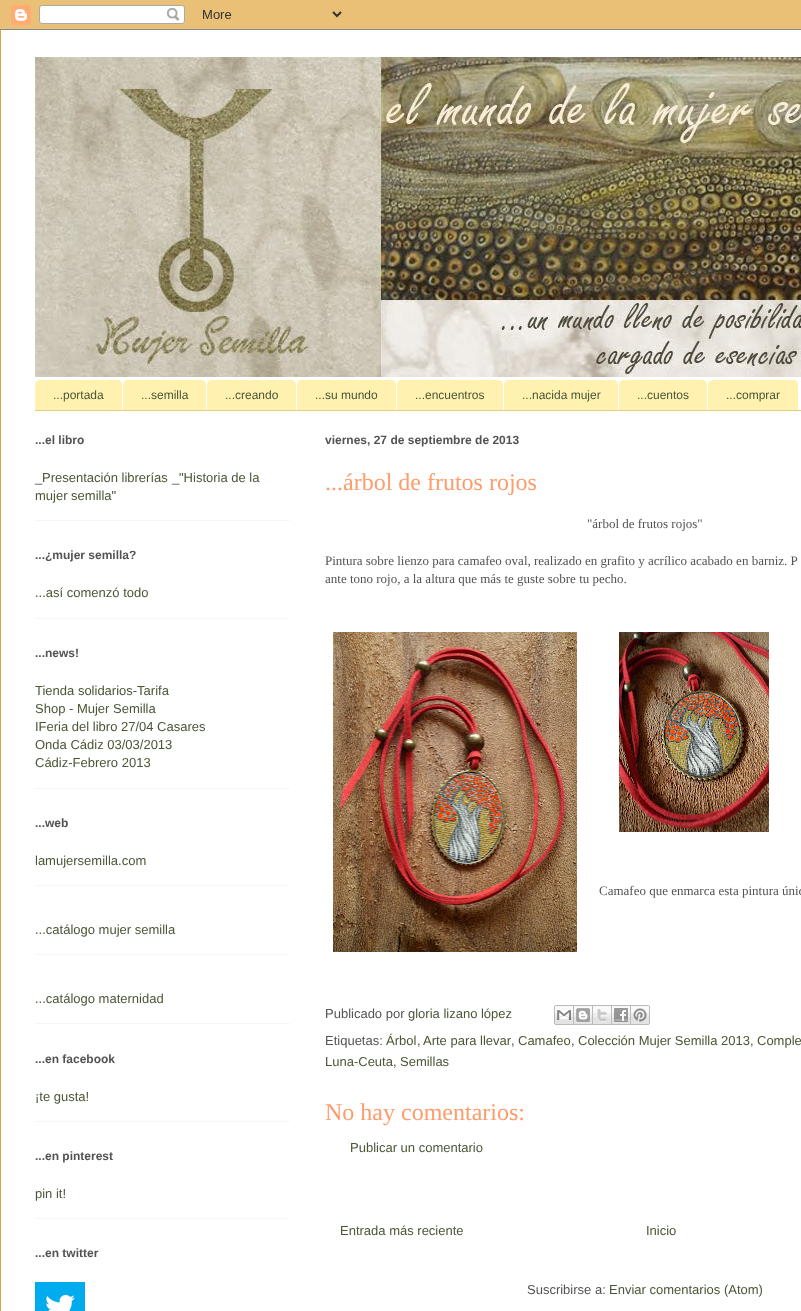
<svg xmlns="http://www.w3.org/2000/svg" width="801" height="1311">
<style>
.a{font:12px Liberation Sans;fill:#4a5636}
.b{font:bold 12px Liberation Sans;fill:#535353}
.c{font:13px Liberation Sans;fill:#4a5636}
.d{font:13px Liberation Sans;fill:#535353}
.e{font:24px Liberation Serif;fill:#ff9c6b}
.f{font:13px Liberation Serif;fill:#535353}
</style>
<rect width="100%" height="100%" fill="#da961c"/>
<image href="1.png" x="0" y="0" width="801" height="30"/>
<path fill="#fff" d="M1 30h800v1281H1z"/>
<path fill="#d5a63f" d="M0 30h1v1281H0z"/>
<image href="2.png" x="35" y="57" width="766" height="320"/>
<path fill="#ebca7a" d="M35 410h766v1H35z"/>
<path fill="#fff2b0" d="M40 380h77c3 0 5 2 5 5v25h-87v-25c0-3 2-5 5-5z"/>
<path fill="#fff2b0" d="M128 380h73c3 0 5 2 5 5v25h-83v-25c0-3 2-5 5-5z"/>
<path fill="#fff2b0" d="M212 380h79c3 0 5 2 5 5v25h-89v-25c0-3 2-5 5-5z"/>
<path fill="#fff2b0" d="M302 380h89c3 0 5 2 5 5v25h-99v-25c0-3 2-5 5-5z"/>
<path fill="#fff2b0" d="M402 380h96c3 0 5 2 5 5v25h-106v-25c0-3 2-5 5-5z"/>
<path fill="#fff2b0" d="M509 380h104c3 0 5 2 5 5v25h-114v-25c0-3 2-5 5-5z"/>
<path fill="#fff2b0" d="M624 380h78c3 0 5 2 5 5v25h-88v-25c0-3 2-5 5-5z"/>
<path fill="#fff2b0" d="M713 380h80c3 0 5 2 5 5v25h-90v-25c0-3 2-5 5-5z"/>
<path fill="#f6f6f6" d="M35 520h255v1H35z"/>
<path fill="#f6f6f6" d="M35 618h255v1H35z"/>
<path fill="#f6f6f6" d="M35 788h255v1H35z"/>
<path fill="#f6f6f6" d="M35 885h255v1H35z"/>
<path fill="#f6f6f6" d="M35 954h255v1H35z"/>
<path fill="#f6f6f6" d="M35 1023h255v1H35z"/>
<path fill="#f6f6f6" d="M35 1121h255v1H35z"/>
<path fill="#f6f6f6" d="M35 1218h255v1H35z"/>
<image href="3.png" x="35" y="1282" width="50" height="29"/>
<image href="4.png" x="333" y="632" width="244" height="320"/>
<image href="5.png" x="619" y="632" width="150" height="200"/>
<image href="6.png" x="554" y="1005" width="20" height="20"/>
<image href="7.png" x="574" y="1005" width="19" height="20"/>
<image href="8.png" x="593" y="1005" width="19" height="20"/>
<image href="9.png" x="612" y="1005" width="19" height="20"/>
<image href="10.png" x="631" y="1005" width="19" height="20"/>
<text class="a" x="53" y="399">...portada</text>
<text class="a" x="141" y="399">...semilla</text>
<text class="a" x="225" y="399">...creando</text>
<text class="a" x="315" y="399">...su mundo</text>
<text class="a" x="415" y="399">...encuentros</text>
<text class="a" x="522" y="399">...nacida mujer</text>
<text class="a" x="637" y="399">...cuentos</text>
<text class="a" x="726" y="399">...comprar</text>
<text class="b" x="35" y="444">...el libro</text>
<text class="c" x="42" y="482">Presentación librerías</text>
<text class="c" x="179" y="482">"Historia de la</text>
<text class="d" x="35" y="482">_</text>
<text class="d" x="172" y="482">_</text>
<text class="c" x="35" y="500">mujer semilla"</text>
<text class="b" x="35" y="559">...¿mujer semilla?</text>
<text class="c" x="35" y="597">...así comenzó todo</text>
<text class="b" x="35" y="657">...news!</text>
<text class="c" x="35" y="695">Tienda solidarios-Tarifa</text>
<text class="c" x="35" y="713">Shop - Mujer Semilla</text>
<text class="c" x="35" y="731">IFeria del libro 27/04 Casares</text>
<text class="c" x="35" y="749">Onda Cádiz 03/03/2013</text>
<text class="c" x="35" y="767">Cádiz-Febrero 2013</text>
<text class="b" x="35" y="827">...web</text>
<text class="c" x="35" y="865">lamujersemilla.com</text>
<text class="c" x="35" y="934">...catálogo mujer semilla</text>
<text class="c" x="35" y="1003">...catálogo maternidad</text>
<text class="b" x="35" y="1063">...en facebook</text>
<text class="c" x="35" y="1101">¡te gusta!</text>
<text class="b" x="35" y="1160">...en pinterest</text>
<text class="c" x="35" y="1198">pin it!</text>
<text class="b" x="35" y="1257">...en twitter</text>
<text class="b" x="325" y="444">viernes, 27 de septiembre de 2013</text>
<text class="e" x="325" y="490">...árbol de frutos rojos</text>
<text class="f" x="587" y="528">"árbol de frutos rojos"</text>
<text class="f" x="325" y="565">Pintura sobre lienzo para camafeo oval, realizado en grafito y acrílico acabado en barniz. P</text>
<text class="f" x="325" y="583">ante tono rojo, a la altura que más te guste sobre tu pecho.</text>
<text class="f" x="599" y="895">Camafeo que enmarca esta pintura únic</text>
<text class="d" x="325" y="1018">Publicado por</text>
<text class="c" x="408" y="1018">gloria lizano lópez</text>
<text class="d" x="325" y="1045">Etiquetas:</text>
<text class="c" x="386" y="1045">Árbol</text>
<text class="d" x="417" y="1045">,</text>
<text class="c" x="423" y="1045">Arte para llevar</text>
<text class="d" x="511" y="1045">,</text>
<text class="c" x="518" y="1045">Camafeo</text>
<text class="d" x="571" y="1045">,</text>
<text class="c" x="578" y="1045">Colección Mujer Semilla 2013</text>
<text class="d" x="750" y="1045">,</text>
<text class="c" x="757" y="1045">Comple</text>
<text class="c" x="325" y="1066">Luna-Ceuta</text>
<text class="d" x="393" y="1066">,</text>
<text class="c" x="400" y="1066">Semillas</text>
<text class="e" x="325" y="1120">No hay comentarios:</text>
<text class="c" x="350" y="1152">Publicar un comentario</text>
<text class="c" x="340" y="1235">Entrada más reciente</text>
<text class="c" x="646" y="1235">Inicio</text>
<text class="d" x="527" y="1294">Suscribirse a:</text>
<text class="c" x="609" y="1294">Enviar comentarios (Atom)</text>
</svg>
